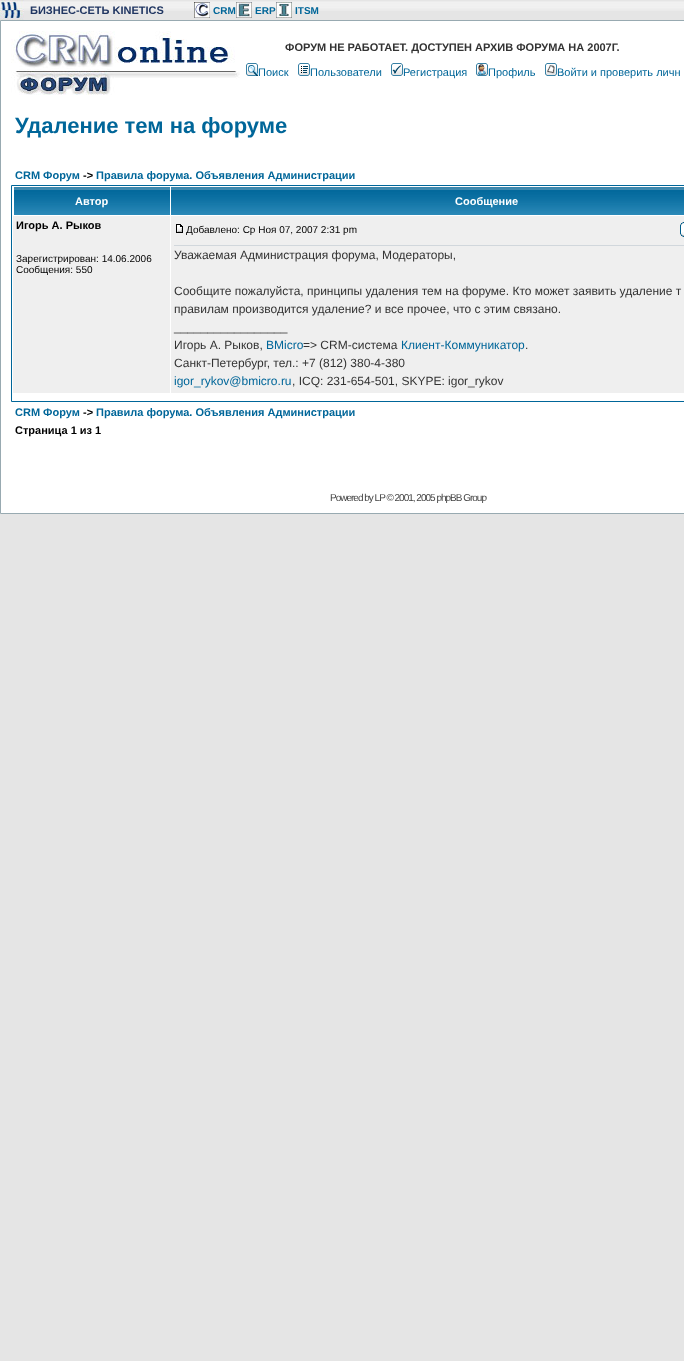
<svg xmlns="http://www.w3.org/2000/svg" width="684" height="1361">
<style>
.a{font:bold 11px Liberation Sans;fill:#203662}
.b{font:bold 10px Liberation Sans;fill:#069}
.c{font:bold 11px Liberation Sans;fill:#333}
.d{font:11px Liberation Sans;fill:#069}
.e{font:bold 22px Liberation Sans;fill:#069}
.f{font:bold 11px Liberation Sans;fill:#069}
.g{font:bold 11px Liberation Sans;fill:#000}
.h{font:bold 11px Liberation Sans;fill:#fff}
.i{font:10px Liberation Sans;fill:#000}
.j{font:12px Liberation Sans;fill:#333}
.k{font:12px Liberation Sans;fill:#069}
.l{font:10px Liberation Sans;letter-spacing:-1px;fill:#444}
</style>
<rect width="100%" height="100%" fill="#e5e5e5"/>
<image href="1.png" x="24" y="1" width="660" height="10"/>
<image href="2.png" x="0" y="0" width="24" height="20"/>
<image href="3.png" x="194" y="2" width="16" height="16"/>
<image href="4.png" x="236" y="2" width="16" height="16"/>
<image href="5.png" x="276" y="2" width="16" height="16"/>
<path fill="#fff" stroke="#98aab1" d="M0.5 20.5h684v493H0.5z"/>
<image href="6.png" x="11" y="31" width="229" height="64"/>
<image href="7.png" x="246" y="63" width="12" height="13"/>
<image href="8.png" x="298" y="63" width="12" height="13"/>
<image href="9.png" x="391" y="63" width="12" height="13"/>
<image href="10.png" x="476" y="63" width="12" height="13"/>
<image href="11.png" x="545" y="63" width="12" height="13"/>
<path fill="none" stroke="#069" d="M11.5 185.5h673v216H11.5z"/>
<image href="12.png" x="14" y="187" width="156" height="28"/>
<image href="13.png" x="171" y="187" width="513" height="28"/>
<path fill="#efefef" d="M13 216h157v177H13z"/>
<path fill="#efefef" d="M171 216h513v177H171z"/>
<image href="14.png" x="176" y="224" width="7" height="9"/>
<image href="15.png" x="680" y="222" width="4" height="15"/>
<path fill="#d1d7dc" d="M174 245h510v1H174z"/>
<text class="a" x="30" y="14">БИЗНЕС-СЕТЬ KINETICS</text>
<text class="b" x="213" y="14">CRM</text>
<text class="b" x="255" y="14">ERP</text>
<text class="b" x="295" y="14">ITSM</text>
<text class="c" x="285" y="51">ФОРУМ НЕ РАБОТАЕТ. ДОСТУПЕН АРХИВ ФОРУМА НА 2007Г.</text>
<text class="d" x="258" y="76">Поиск</text>
<text class="d" x="310" y="76">Пользователи</text>
<text class="d" x="403" y="76">Регистрация</text>
<text class="d" x="488" y="76">Профиль</text>
<text class="d" x="557" y="76">Войти и проверить личн</text>
<text class="e" x="15" y="133">Удаление тем на форуме</text>
<text class="f" x="15" y="179">CRM Форум</text>
<text class="g" x="83" y="179">-&gt;</text>
<text class="f" x="96" y="179">Правила форума. Объявления Администрации</text>
<text class="h" x="75" y="205">Автор</text>
<text class="h" x="455" y="205">Сообщение</text>
<text class="g" x="16" y="229">Игорь А. Рыков</text>
<text class="i" x="16" y="262">Зарегистрирован: 14.06.2006</text>
<text class="i" x="16" y="273">Сообщения: 550</text>
<text class="i" x="186" y="233">Добавлено: Ср Ноя 07, 2007 2:31 pm</text>
<text class="j" x="174" y="259">Уважаемая Администрация форума, Модераторы,</text>
<text class="j" x="174" y="295">Сообщите пожалуйста, принципы удаления тем на форуме. Кто может заявить удаление т</text>
<text class="j" x="174" y="313">правилам производится удаление? и все прочее, что с этим связано.</text>
<text class="j" x="174" y="331">_________________</text>
<text class="j" x="174" y="349">Игорь А. Рыков,</text>
<text class="k" x="266" y="349">BMicro</text>
<text class="j" x="303" y="349">=&gt; CRM-система</text>
<text class="k" x="401" y="349">Клиент-Коммуникатор</text>
<text class="j" x="525" y="349">.</text>
<text class="j" x="174" y="367">Санкт-Петербург, тел.: +7 (812) 380-4-380</text>
<text class="k" x="174" y="385">igor_rykov@bmicro.ru</text>
<text class="j" x="292" y="385">, ICQ: 231-654-501, SKYPE: igor_rykov</text>
<text class="f" x="15" y="416">CRM Форум</text>
<text class="g" x="83" y="416">-&gt;</text>
<text class="f" x="96" y="416">Правила форума. Объявления Администрации</text>
<text class="g" x="15" y="434">Страница 1 из 1</text>
<text class="l" x="330" y="501">Powered by LP © 2001, 2005 phpBB Group</text>
</svg>
